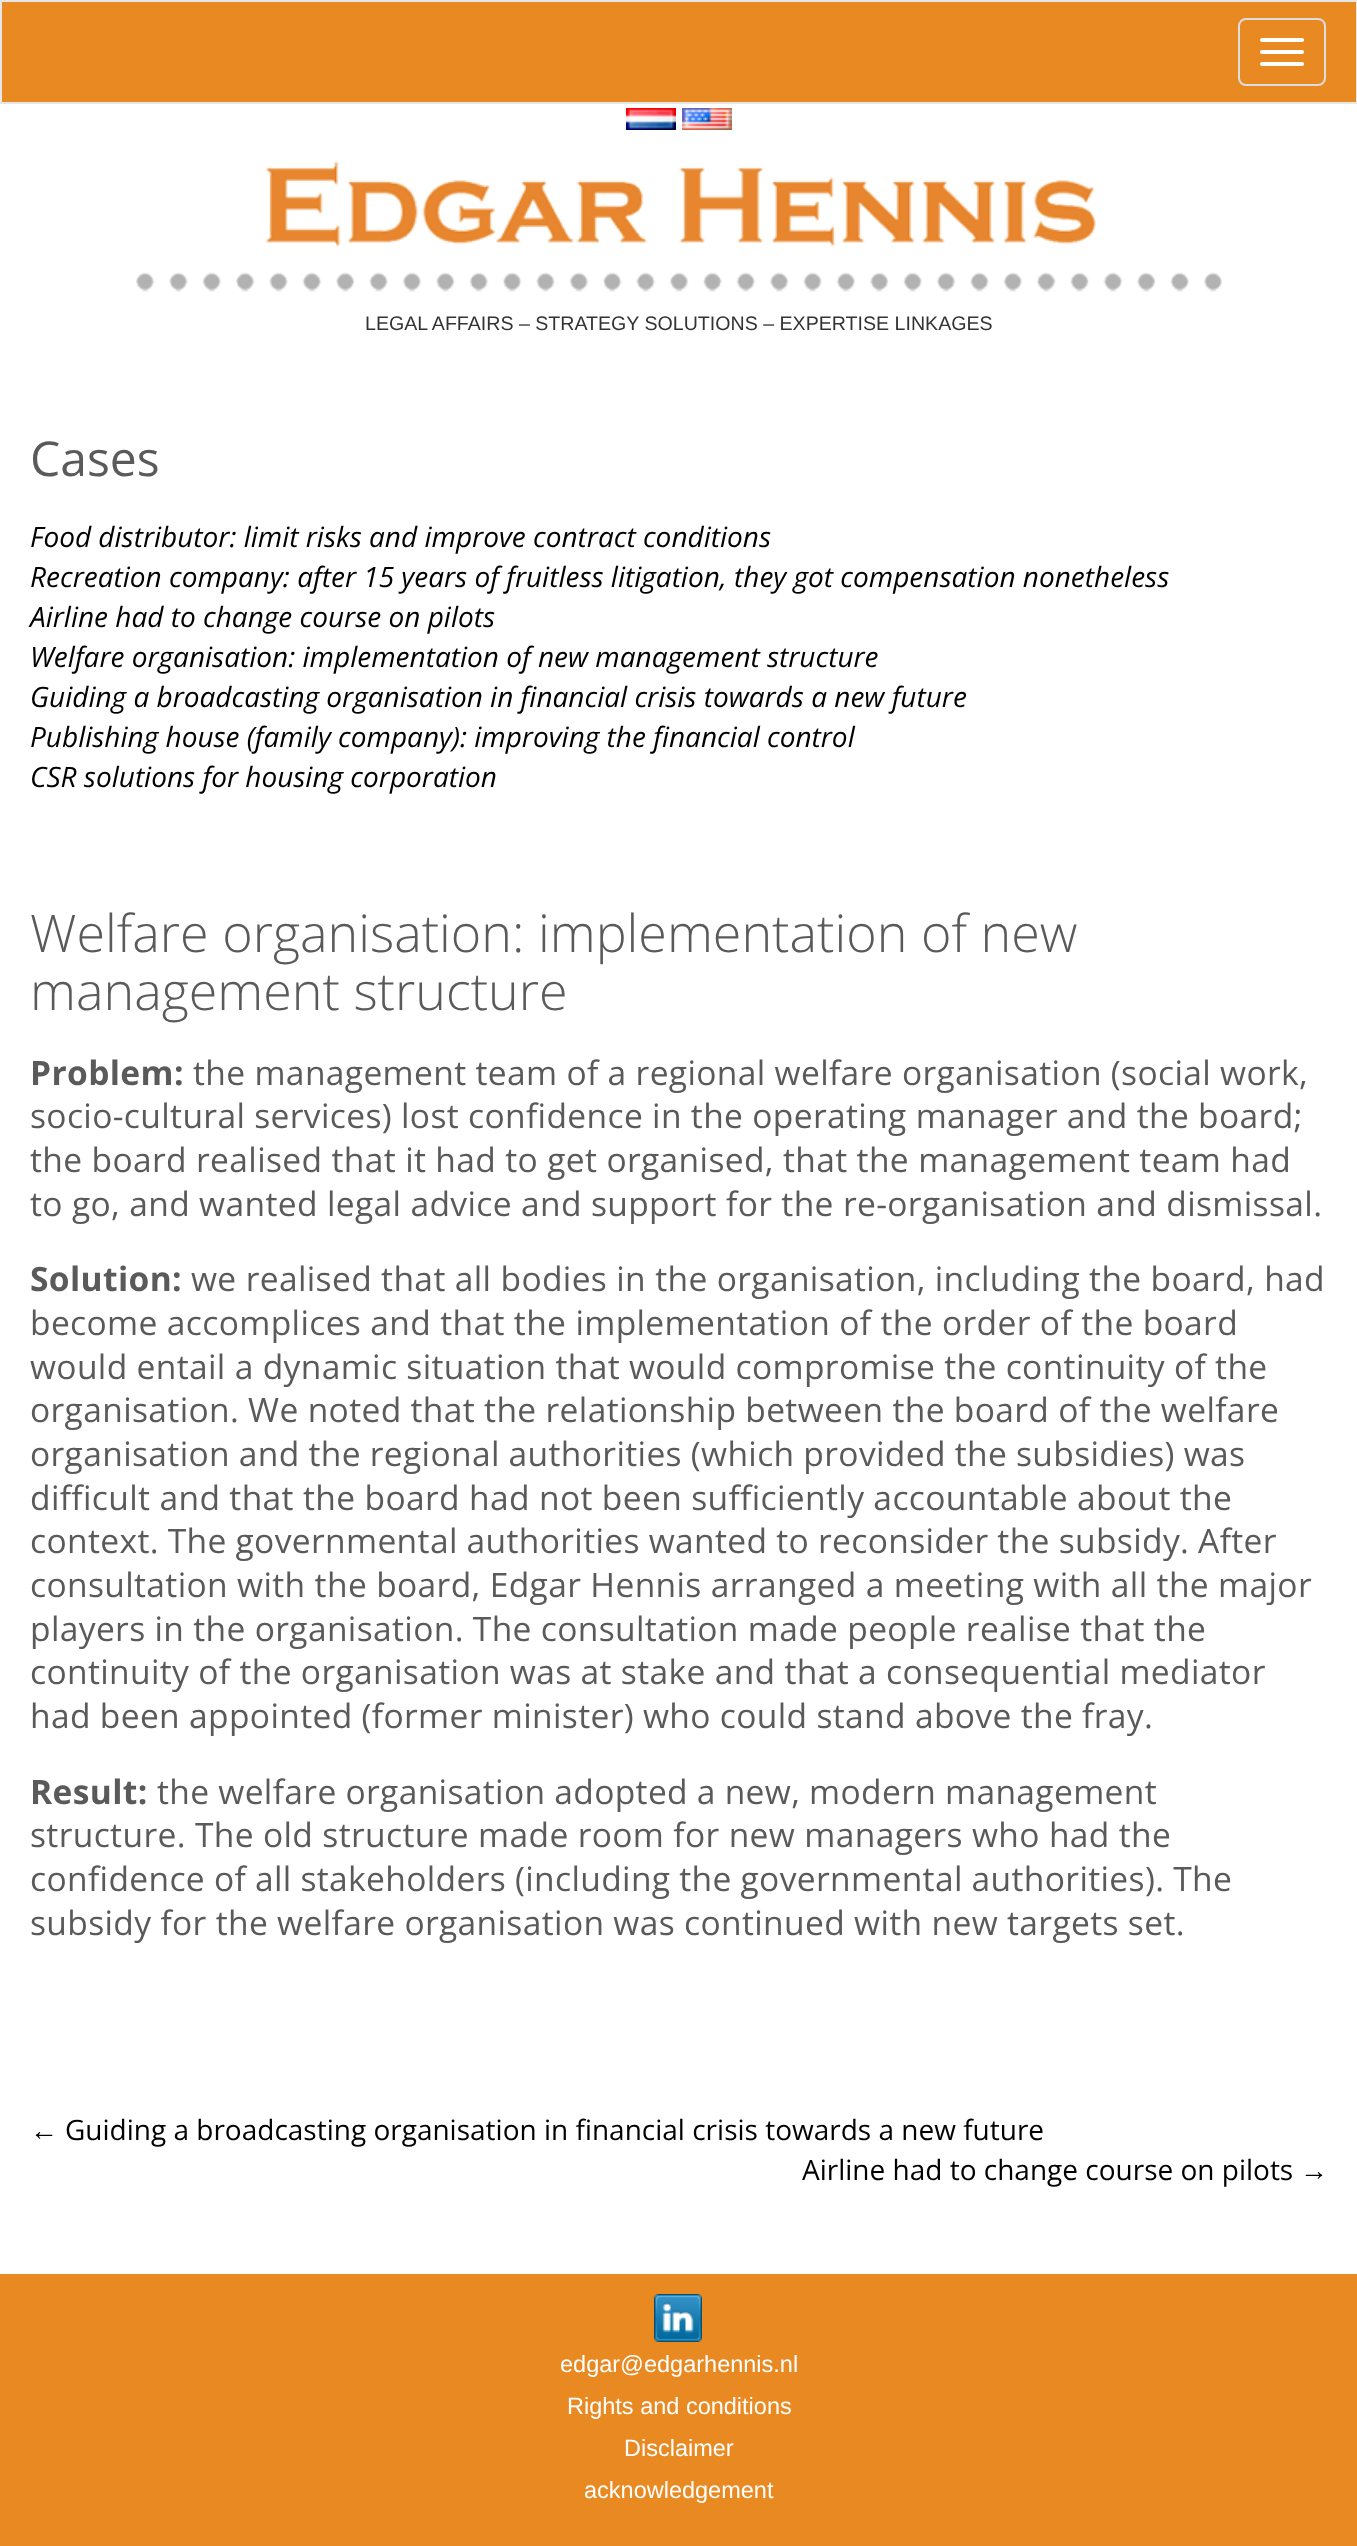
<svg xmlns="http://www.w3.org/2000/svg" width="1357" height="2546">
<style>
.a{font:19.6px Liberation Sans;fill:#333}
.b{font:48px Open Sans;fill:#5a5a5a}
.c{font:italic 28px Open Sans;fill:#000}
.d{font:300 52px Open Sans;fill:#5a5a5a}
.e{font:bold 33.6px Open Sans;letter-spacing:0.35px;fill:#5a5a5a}
.f{font:33.6px Open Sans;letter-spacing:0.35px;fill:#5a5a5a}
.g{font:28px Liberation Serif;fill:#000}
.h{font:28px Open Sans;fill:#000}
.i{font:23.5px Liberation Sans;fill:#fff}
</style>
<rect width="100%" height="100%" fill="#fff"/>
<path fill="#e98922" stroke="#e7e7e7" stroke-width="2" d="M1 1h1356v102H1z"/>
<rect fill="none" stroke="#ddd" stroke-width="2" x="1239" y="19" width="86" height="66" rx="7"/>
<rect fill="#fff" x="1260" y="38" width="44" height="4" rx="2"/>
<rect fill="#fff" x="1260" y="50" width="44" height="4" rx="2"/>
<rect fill="#fff" x="1260" y="62" width="44" height="4" rx="2"/>
<image href="1.png" x="626" y="108" width="50" height="22"/>
<image href="2.png" x="682" y="108" width="50" height="22"/>
<image href="3.png" x="136" y="161" width="1086" height="131"/>
<path fill="#e98922" d="M0 2274h1357v272H0z"/>
<image href="4.png" x="654" y="2294" width="48" height="48"/>
<text class="a" x="365" y="330">LEGAL AFFAIRS – STRATEGY SOLUTIONS – EXPERTISE LINKAGES</text>
<text class="b" x="30" y="476">Cases</text>
<text class="c" x="30" y="547">Food distributor: limit risks and improve contract conditions</text>
<text class="c" x="30" y="587">Recreation company: after 15 years of fruitless litigation, they got compensation nonetheless</text>
<text class="c" x="30" y="627">Airline had to change course on pilots</text>
<text class="c" x="30" y="667">Welfare organisation: implementation of new management structure</text>
<text class="c" x="30" y="707">Guiding a broadcasting organisation in financial crisis towards a new future</text>
<text class="c" x="30" y="747">Publishing house (family company): improving the financial control</text>
<text class="c" x="30" y="787">CSR solutions for housing corporation</text>
<text class="d" x="30" y="952">Welfare organisation: implementation of new</text>
<text class="d" x="30" y="1010">management structure</text>
<text class="e" x="30" y="1085">Problem:</text>
<text class="f" x="193" y="1085" word-spacing="-0.1">the management team of a regional welfare organisation (social work,</text>
<text class="f" x="30" y="1128" word-spacing="-0.1">socio-cultural services) lost confidence in the operating manager and the board;</text>
<text class="f" x="30" y="1172">the board realised that it had to get organised, that the management team had</text>
<text class="f" x="30" y="1216">to go, and wanted legal advice and support for the re-organisation and dismissal.</text>
<text class="e" x="30" y="1291">Solution:</text>
<text class="f" x="191" y="1291">we realised that all bodies in the organisation, including the board, had</text>
<text class="f" x="30" y="1335">become accomplices and that the implementation of the order of the board</text>
<text class="f" x="30" y="1379" word-spacing="-0.1">would entail a dynamic situation that would compromise the continuity of the</text>
<text class="f" x="30" y="1422" word-spacing="-0.1">organisation. We noted that the relationship between the board of the welfare</text>
<text class="f" x="30" y="1466" word-spacing="-0.25">organisation and the regional authorities (which provided the subsidies) was</text>
<text class="f" x="30" y="1510">difficult and that the board had not been sufficiently accountable about the</text>
<text class="f" x="30" y="1553" word-spacing="-0.25">context. The governmental authorities wanted to reconsider the subsidy. After</text>
<text class="f" x="30" y="1597">consultation with the board, Edgar Hennis arranged a meeting with all the major</text>
<text class="f" x="30" y="1641" word-spacing="-0.1">players in the organisation. The consultation made people realise that the</text>
<text class="f" x="30" y="1684" word-spacing="-0.1">continuity of the organisation was at stake and that a consequential mediator</text>
<text class="f" x="30" y="1728" word-spacing="-0.1">had been appointed (former minister) who could stand above the fray.</text>
<text class="e" x="30" y="1804">Result:</text>
<text class="f" x="157" y="1804" word-spacing="-0.25">the welfare organisation adopted a new, modern management</text>
<text class="f" x="30" y="1847">structure. The old structure made room for new managers who had the</text>
<text class="f" x="30" y="1891" word-spacing="-0.25">confidence of all stakeholders (including the governmental authorities). The</text>
<text class="f" x="30" y="1935" word-spacing="-0.1">subsidy for the welfare organisation was continued with new targets set.</text>
<text class="g" x="30" y="2140">←</text>
<text class="h" x="65" y="2140">Guiding a broadcasting organisation in financial crisis towards a new future</text>
<text class="h" x="802" y="2180">Airline had to change course on pilots</text>
<text class="g" x="1300" y="2180">→</text>
<text class="i" x="560" y="2372">edgar@edgarhennis.nl</text>
<text class="i" x="567" y="2414">Rights and conditions</text>
<text class="i" x="624" y="2456">Disclaimer</text>
<text class="i" x="584" y="2498">acknowledgement</text>
</svg>
